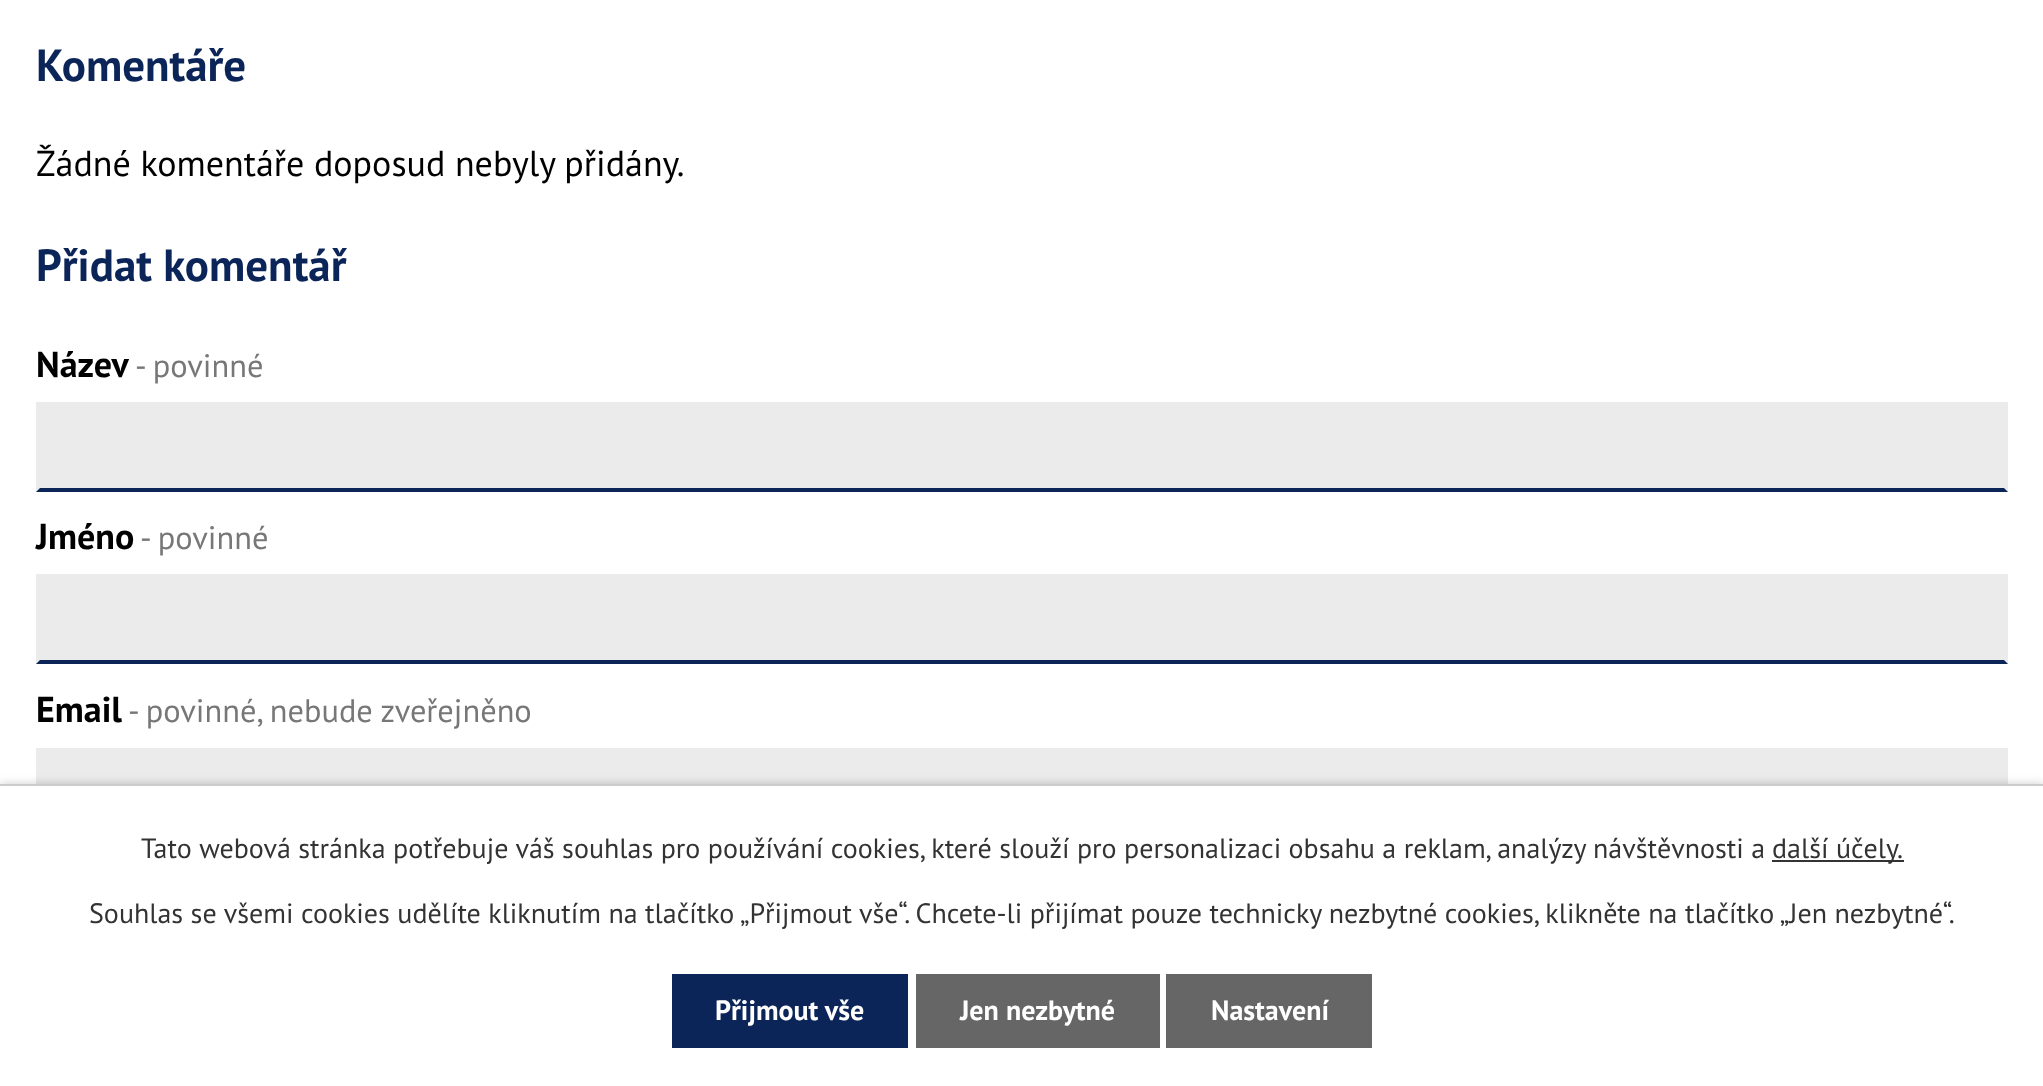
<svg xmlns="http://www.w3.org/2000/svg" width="2043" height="1086">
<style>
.a{font:bold 45px PT Sans;fill:#0b2559}
.b{font:36px PT Sans;fill:#000}
.c{font:bold 36px PT Sans;fill:#000}
.d{font:32.4px PT Sans;fill:#777}
.e{font:28px PT Sans;fill:#333}
.f{font:bold 28px PT Sans;fill:#fff}
</style>
<rect width="100%" height="100%" fill="#fff"/>
<path fill="#ebebeb" d="M36 402h1972v90H36z"/>
<path fill="#0b2559" d="M2008 492h-1972l4-4h1964z"/>
<path fill="#ebebeb" d="M36 574h1972v90H36z"/>
<path fill="#0b2559" d="M2008 664h-1972l4-4h1964z"/>
<path fill="#ebebeb" d="M36 748h1972v36H36z"/>
<path fill="#00000033" filter="blur(5px)" d="M0 784h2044v302H0z"/>
<path fill="#fff" d="M0 786h2043v300H0z"/>
<path fill="#ccc" d="M0 784h2043v2H0z"/>
<path fill="#333" d="M1772 860h132v2H1772z"/>
<path fill="#0b2559" d="M672 974h236v74H672z"/>
<path fill="#666" d="M916 974h244v74H916z"/>
<path fill="#666" d="M1166 974h206v74H1166z"/>
<text class="a" x="36" y="81">Komentáře</text>
<text class="b" x="36" y="176">Žádné komentáře doposud nebyly přidány.</text>
<text class="a" x="36" y="281">Přidat komentář</text>
<text class="c" x="36" y="377">Název</text>
<text class="d" x="135" y="377">- povinné</text>
<text class="c" x="36" y="549">Jméno</text>
<text class="d" x="140" y="549">- povinné</text>
<text class="c" x="36" y="722">Email</text>
<text class="d" x="128" y="722">- povinné, nebude zveřejněno</text>
<text class="e" x="141" y="858">Tato webová stránka potřebuje váš souhlas pro používání cookies, které slouží pro personalizaci obsahu a reklam, analýzy návštěvnosti a</text>
<text class="e" x="1772" y="858">další účely.</text>
<text class="e" x="89" y="923">Souhlas se všemi cookies udělíte kliknutím na tlačítko „Přijmout vše“. Chcete-li přijímat pouze technicky nezbytné cookies, klikněte na tlačítko „Jen nezbytné“.</text>
<text class="f" x="715" y="1020">Přijmout vše</text>
<text class="f" x="960" y="1020">Jen nezbytné</text>
<text class="f" x="1211" y="1020">Nastavení</text>
</svg>
